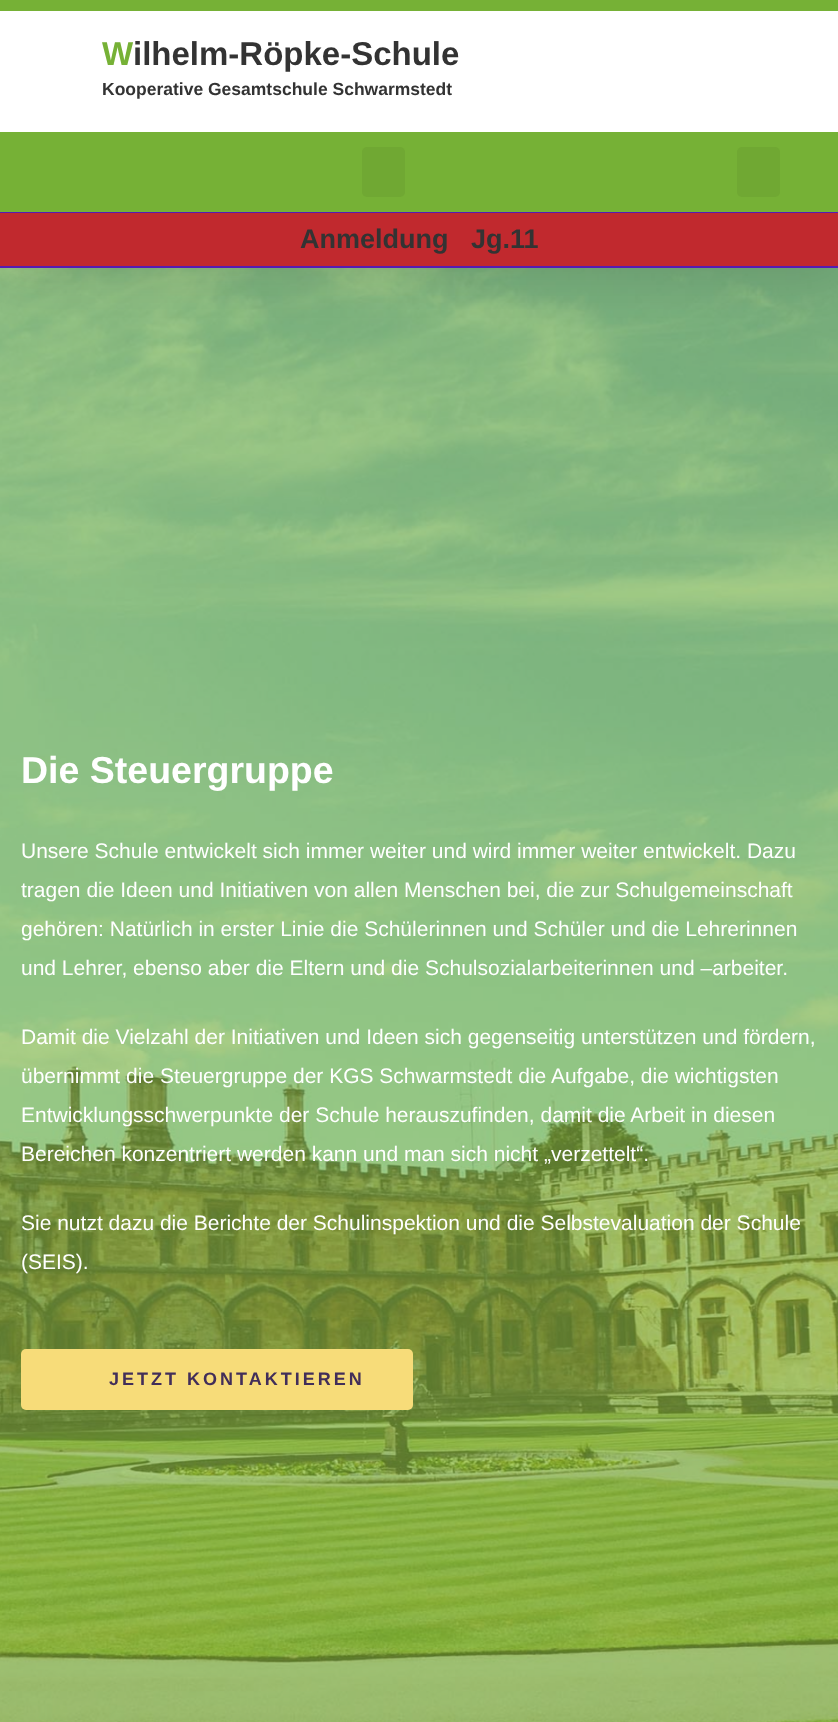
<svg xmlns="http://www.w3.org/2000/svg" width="838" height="1722">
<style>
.a{font:bold 33px Liberation Sans;fill:#76b136}
.b{font:bold 33px Liberation Sans;fill:#333}
.c{font:bold 17.5px Liberation Sans;fill:#333}
.d{font:bold 27px Liberation Sans;fill:#333}
.e{font:bold 37.5px Liberation Sans;fill:#fff}
.f{font:21px Liberation Sans;fill:#fff}
.g{font:bold 18px Liberation Sans;letter-spacing:3px;fill:#422e59}
</style>
<rect width="100%" height="100%" fill="#fff"/>
<image href="1.png" x="0" y="268" width="838" height="1454"/>
<path fill="#0000001a" filter="blur(22.5px)" d="M0 8h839v267H0z"/>
<path fill="#76b136" d="M0 0h838v11H0z"/>
<path fill="#fff" d="M0 11h838v121H0z"/>
<path fill="#76b136" d="M0 132h838v80H0z"/>
<path fill="#561bb3" d="M0 212h838v1H0z"/>
<rect fill="#70a833" x="362" y="147" width="43" height="50" rx="5"/>
<rect fill="#70a833" x="737" y="147" width="43" height="50" rx="5"/>
<path fill="#c1292e" d="M0 213h838v53H0z"/>
<path fill="#561bb3" d="M0 266h838v2H0z"/>
<rect fill="#f7dc79" x="21" y="1349" width="392" height="61" rx="5"/>
<text class="a" x="102" y="65">W</text>
<text class="b" x="133" y="65">ilhelm-Röpke-Schule</text>
<text class="c" x="102" y="95">Kooperative Gesamtschule Schwarmstedt</text>
<text class="d" x="300" y="248">Anmeldung</text>
<text class="d" x="471" y="248">Jg.11</text>
<text class="e" x="21" y="783">Die Steuergruppe</text>
<text class="f" x="21" y="858">Unsere Schule entwickelt sich immer weiter und wird immer weiter entwickelt. Dazu</text>
<text class="f" x="21" y="897">tragen die Ideen und Initiativen von allen Menschen bei, die zur Schulgemeinschaft</text>
<text class="f" x="21" y="936">gehören: Natürlich in erster Linie die Schülerinnen und Schüler und die Lehrerinnen</text>
<text class="f" x="21" y="975">und Lehrer, ebenso aber die Eltern und die Schulsozialarbeiterinnen und –arbeiter.</text>
<text class="f" x="21" y="1044">Damit die Vielzahl der Initiativen und Ideen sich gegenseitig unterstützen und fördern,</text>
<text class="f" x="21" y="1083">übernimmt die Steuergruppe der KGS Schwarmstedt die Aufgabe, die wichtigsten</text>
<text class="f" x="21" y="1122">Entwicklungsschwerpunkte der Schule herauszufinden, damit die Arbeit in diesen</text>
<text class="f" x="21" y="1161">Bereichen konzentriert werden kann und man sich nicht „verzettelt“.</text>
<text class="f" x="21" y="1230">Sie nutzt dazu die Berichte der Schulinspektion und die Selbstevaluation der Schule</text>
<text class="f" x="21" y="1269">(SEIS).</text>
<text class="g" x="109" y="1385">JETZT KONTAKTIEREN</text>
</svg>
